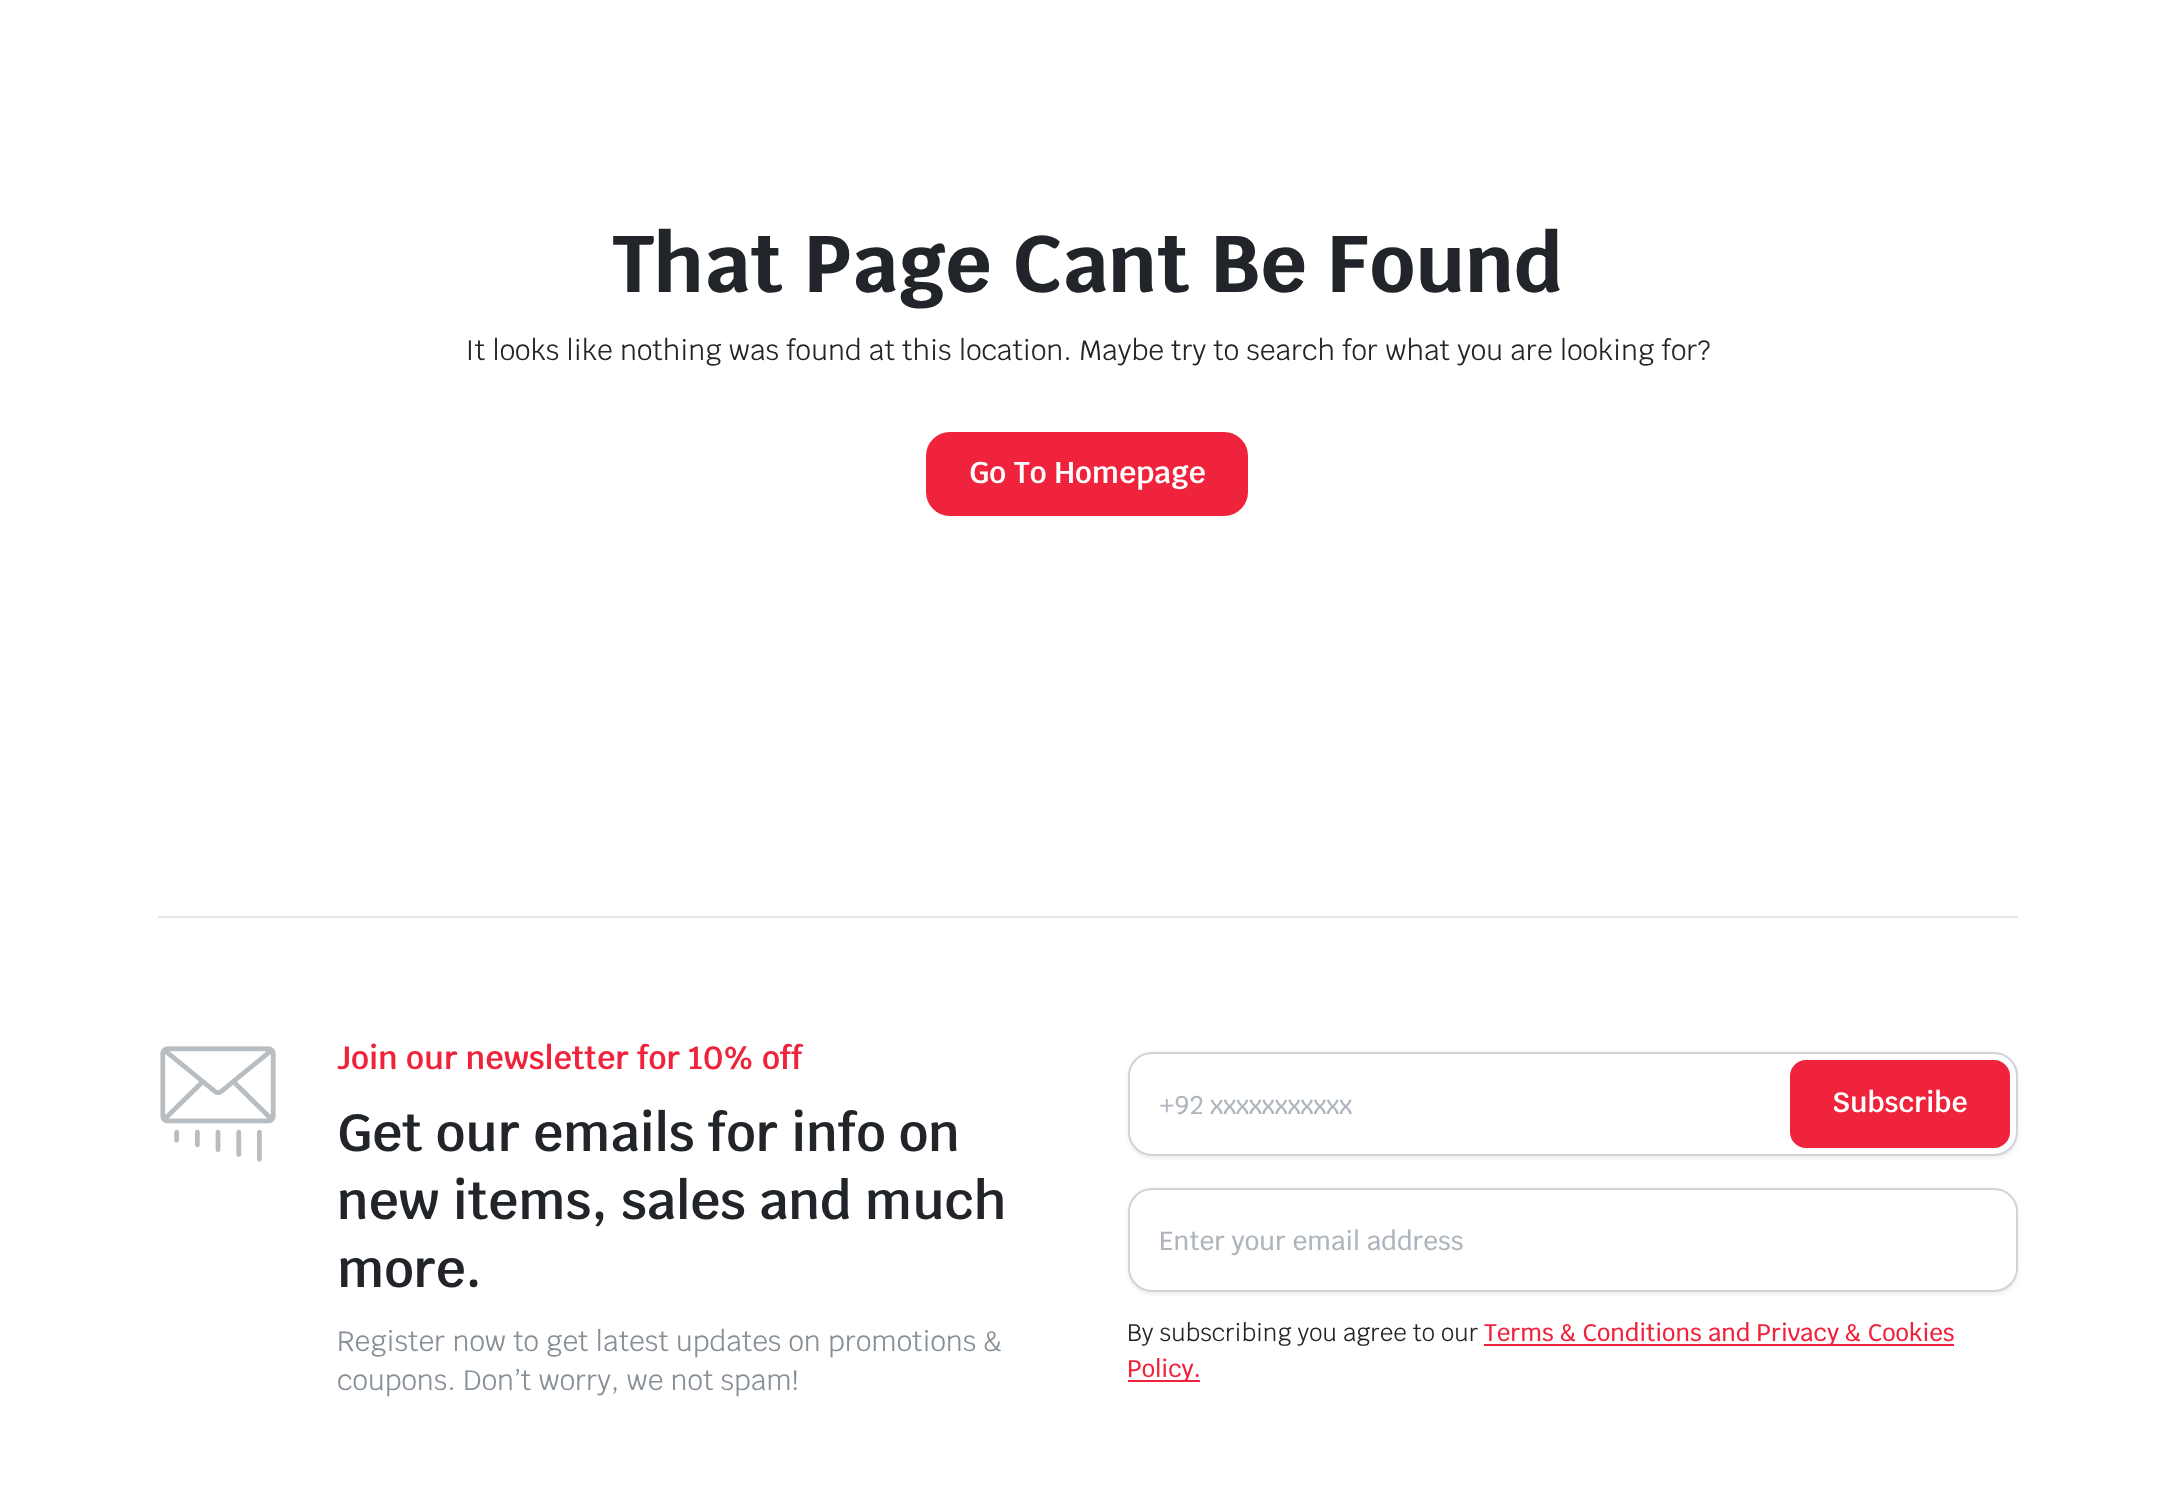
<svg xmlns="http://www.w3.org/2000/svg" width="2174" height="1508">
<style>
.a{font:bold 80px Krub;fill:#212529}
.b{font:28px Krub;letter-spacing:-0.05px;fill:#212529}
.c{font:600 30px Krub;letter-spacing:-0.05px;fill:#fff}
.d{font:600 32px Krub;fill:#ef233c}
.e{font:600 52px Krub;fill:#212529}
.f{font:28px Krub;letter-spacing:-0.05px;fill:#868e96}
.g{font:500 26px Krub;fill:#adb5bd}
.h{font:600 28px Krub;fill:#fff}
.i{font:24px Krub;letter-spacing:-0.05px;fill:#212529}
.j{font:500 24px Krub;letter-spacing:-0.05px;fill:#ef233c}
</style>
<rect width="100%" height="100%" fill="#fff"/>
<rect fill="#ef233c" stroke="#ef233c" stroke-width="2" x="927" y="433" width="320" height="82" rx="23"/>
<path fill="#e6e6e6" d="M158 916h1860v2H158z"/>
<image href="1.png" x="160" y="1046" width="116" height="116"/>
<rect fill="#21252917" filter="blur(2px)" x="1128" y="1054" width="890" height="104" rx="24"/>
<rect fill="#fff" stroke="#ced4da" stroke-width="2" x="1129" y="1053" width="888" height="102" rx="23"/>
<rect fill="#ef233c" stroke="#ef233c" stroke-width="2" x="1791" y="1061" width="218" height="86" rx="15"/>
<rect fill="#21252917" filter="blur(2px)" x="1128" y="1190" width="890" height="104" rx="24"/>
<rect fill="#fff" stroke="#ced4da" stroke-width="2" x="1129" y="1189" width="888" height="102" rx="23"/>
<path fill="#ef233c" d="M1484 1344h470v2H1484z"/>
<path fill="#ef233c" d="M1128 1380h72v2H1128z"/>
<text class="a" x="612" y="292">That Page Cant Be Found</text>
<text class="b" x="465" y="360">It looks like nothing was found at this location. Maybe try to search for what you are looking for?</text>
<text class="c" x="969" y="483">Go To Homepage</text>
<text class="d" x="337" y="1069">Join our newsletter for 10% off</text>
<text class="e" x="337" y="1151">Get our emails for info on</text>
<text class="e" x="337" y="1219">new items, sales and much</text>
<text class="e" x="337" y="1287">more.</text>
<text class="f" x="337" y="1351">Register now to get latest updates on promotions &amp;</text>
<text class="f" x="337" y="1390">coupons. Don’t worry, we not spam!</text>
<text class="g" x="1159" y="1114">+92 xxxxxxxxxxx</text>
<text class="h" x="1832" y="1112">Subscribe</text>
<text class="g" x="1159" y="1250">Enter your email address</text>
<text class="i" x="1127" y="1341">By subscribing you agree to our</text>
<text class="j" x="1484" y="1341">Terms &amp; Conditions and Privacy &amp; Cookies</text>
<text class="j" x="1127" y="1377">Policy.</text>
</svg>
